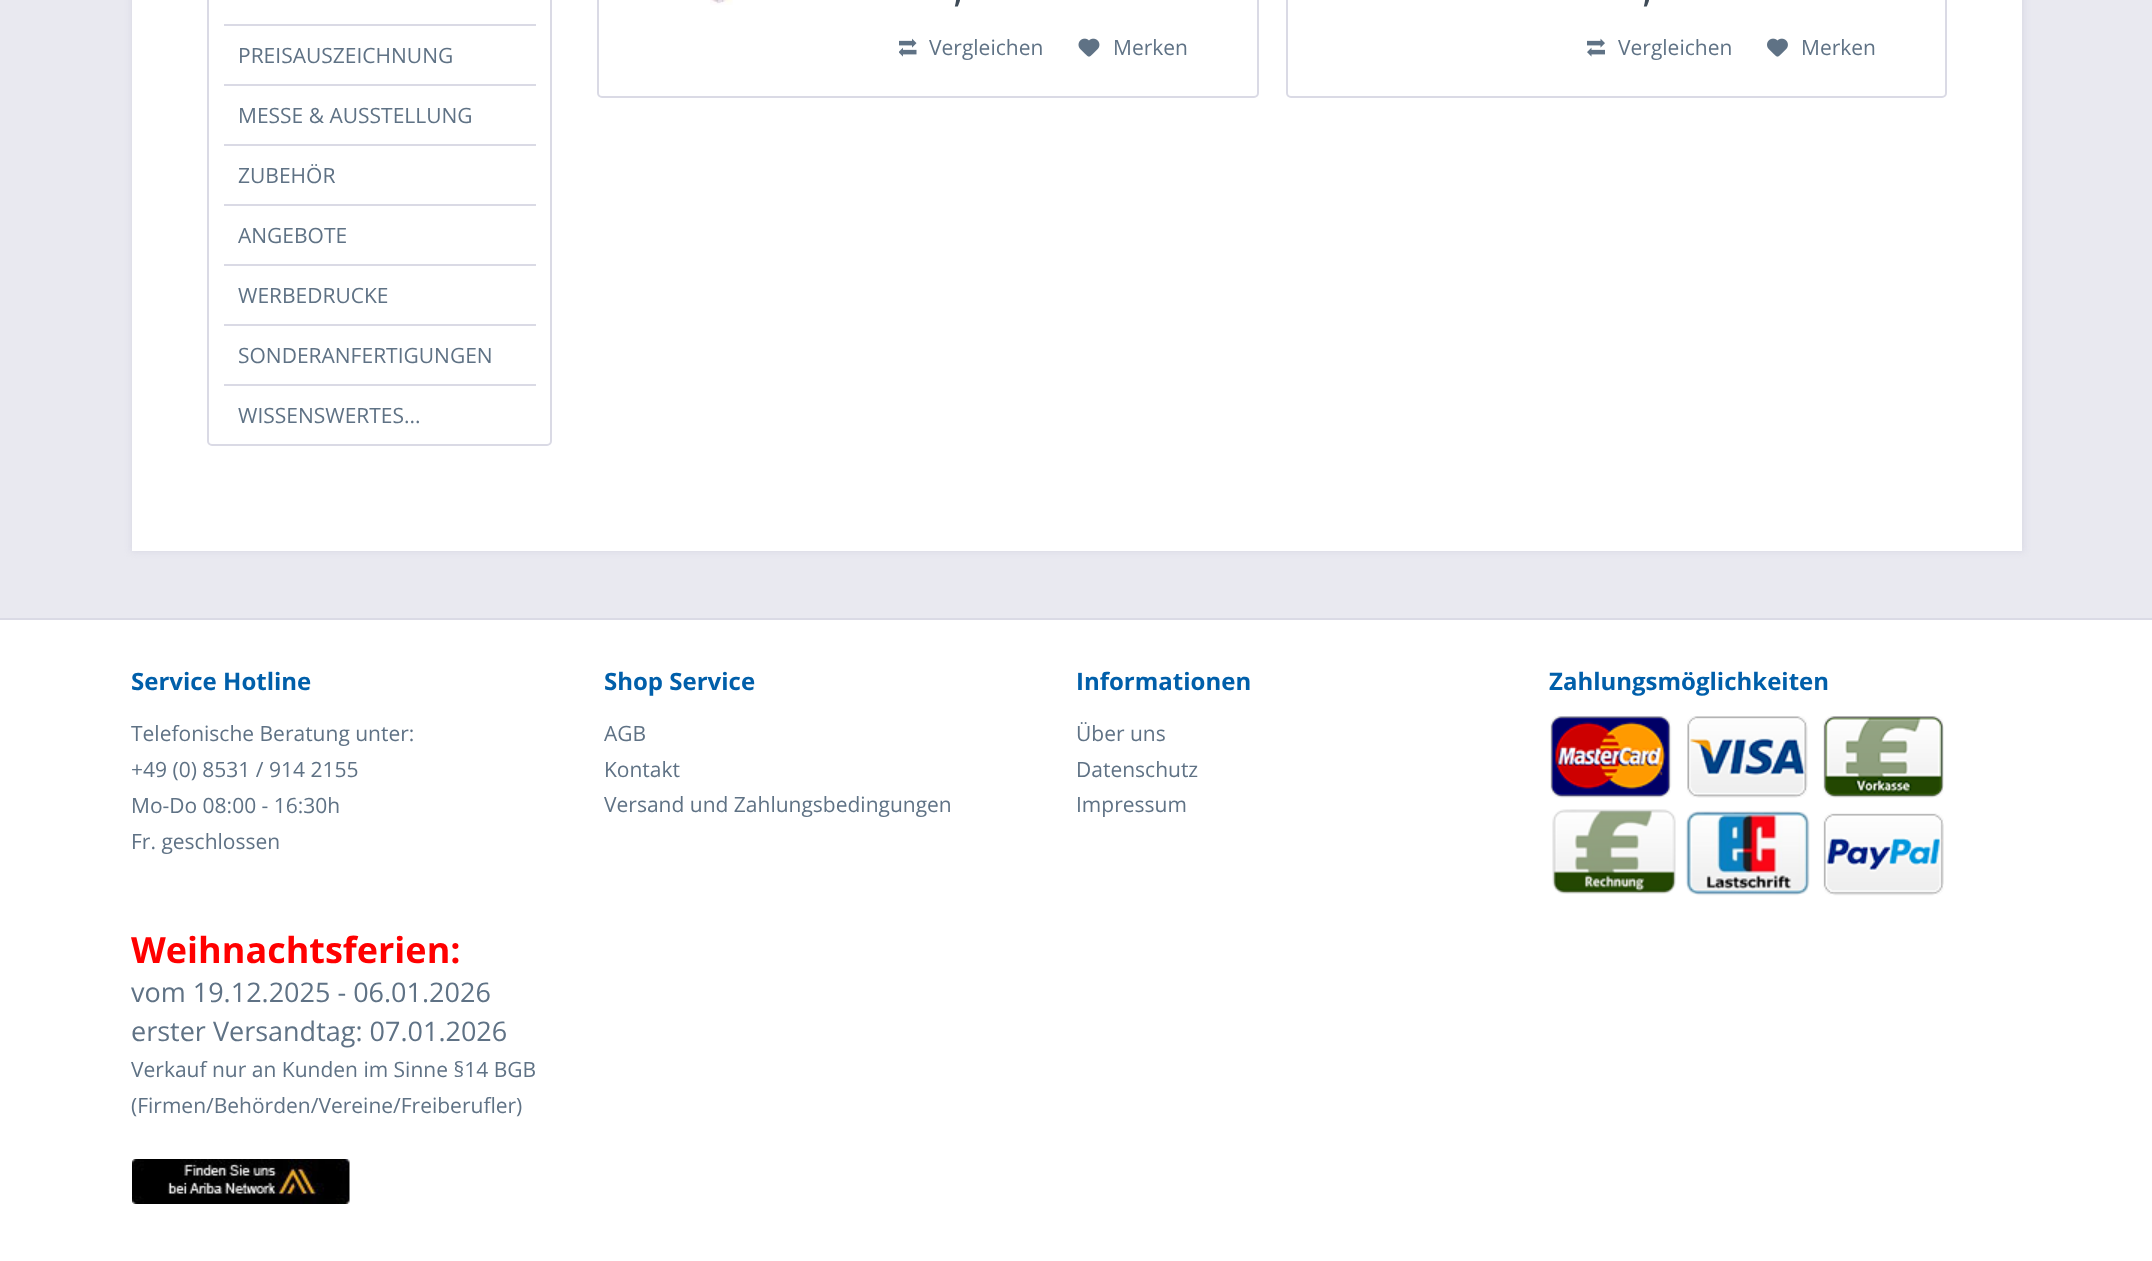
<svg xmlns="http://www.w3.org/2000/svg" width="2152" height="1261">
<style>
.a{font:bold 27px Open Sans;fill:#3f4c58}
.b{font:21px Open Sans;fill:#5f7285}
.c{font:bold 24px Open Sans;fill:#005faa}
.d{font:bold 36px Open Sans;fill:#f00}
.e{font:27px Open Sans;fill:#5f7285}
</style>
<rect width="100%" height="100%" fill="#e9e9f0"/>
<path fill="#dadae5" filter="blur(3px)" d="M131 -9h1893v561H131z"/>
<path fill="#fff" d="M132 0h1890v551H132z"/>
<rect fill="none" stroke="#dadae5" stroke-width="2" x="598" y="-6" width="660" height="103" rx="4"/>
<image href="1.png" x="710" y="0" width="23" height="5"/>
<image href="2.png" x="899" y="38" width="18" height="19"/>
<image href="3.png" x="1078" y="38" width="22" height="19"/>
<rect fill="none" stroke="#dadae5" stroke-width="2" x="1287" y="-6" width="659" height="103" rx="4"/>
<image href="4.png" x="1587" y="38" width="18" height="19"/>
<image href="5.png" x="1767" y="38" width="21" height="19"/>
<rect fill="none" stroke="#dadae5" stroke-width="2" x="208" y="-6" width="343" height="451" rx="4"/>
<path fill="#dadae5" d="M224 24h312v2H224z"/>
<path fill="#dadae5" d="M224 84h312v2H224z"/>
<path fill="#dadae5" d="M224 144h312v2H224z"/>
<path fill="#dadae5" d="M224 204h312v2H224z"/>
<path fill="#dadae5" d="M224 264h312v2H224z"/>
<path fill="#dadae5" d="M224 324h312v2H224z"/>
<path fill="#dadae5" d="M224 384h312v2H224z"/>
<path fill="#fff" d="M0 620h2152v641H0z"/>
<path fill="#dadae5" d="M0 618h2152v2H0z"/>
<image href="6.png" x="132" y="1159" width="218" height="45"/>
<image href="7.png" x="1550" y="716" width="394" height="180"/>
<text class="a" x="954" y="3">,</text>
<text class="b" x="929" y="55">Vergleichen</text>
<text class="b" x="1113" y="55">Merken</text>
<text class="a" x="1643" y="3">,</text>
<text class="b" x="1618" y="55">Vergleichen</text>
<text class="b" x="1801" y="55">Merken</text>
<text class="b" x="238" y="63">PREISAUSZEICHNUNG</text>
<text class="b" x="238" y="123">MESSE &amp; AUSSTELLUNG</text>
<text class="b" x="238" y="183">ZUBEHÖR</text>
<text class="b" x="238" y="243">ANGEBOTE</text>
<text class="b" x="238" y="303">WERBEDRUCKE</text>
<text class="b" x="238" y="363">SONDERANFERTIGUNGEN</text>
<text class="b" x="238" y="423">WISSENSWERTES...</text>
<text class="c" x="131" y="690">Service Hotline</text>
<text class="b" x="131" y="741">Telefonische Beratung unter:</text>
<text class="b" x="131" y="777">+49 (0) 8531 / 914 2155</text>
<text class="b" x="131" y="813">Mo-Do 08:00 - 16:30h</text>
<text class="b" x="131" y="849">Fr. geschlossen</text>
<text class="d" x="131" y="963">Weihnachtsferien:</text>
<text class="e" x="131" y="1002">vom 19.12.2025 - 06.01.2026</text>
<text class="e" x="131" y="1041">erster Versandtag: 07.01.2026</text>
<text class="b" x="131" y="1077">Verkauf nur an Kunden im Sinne §14 BGB</text>
<text class="b" x="131" y="1113">(Firmen/Behörden/Vereine/Freiberufler)</text>
<text class="c" x="604" y="690">Shop Service</text>
<text class="b" x="604" y="741">AGB</text>
<text class="b" x="604" y="777">Kontakt</text>
<text class="b" x="604" y="812">Versand und Zahlungsbedingungen</text>
<text class="c" x="1076" y="690">Informationen</text>
<text class="b" x="1076" y="741">Über uns</text>
<text class="b" x="1076" y="777">Datenschutz</text>
<text class="b" x="1076" y="812">Impressum</text>
<text class="c" x="1549" y="690">Zahlungsmöglichkeiten</text>
</svg>
